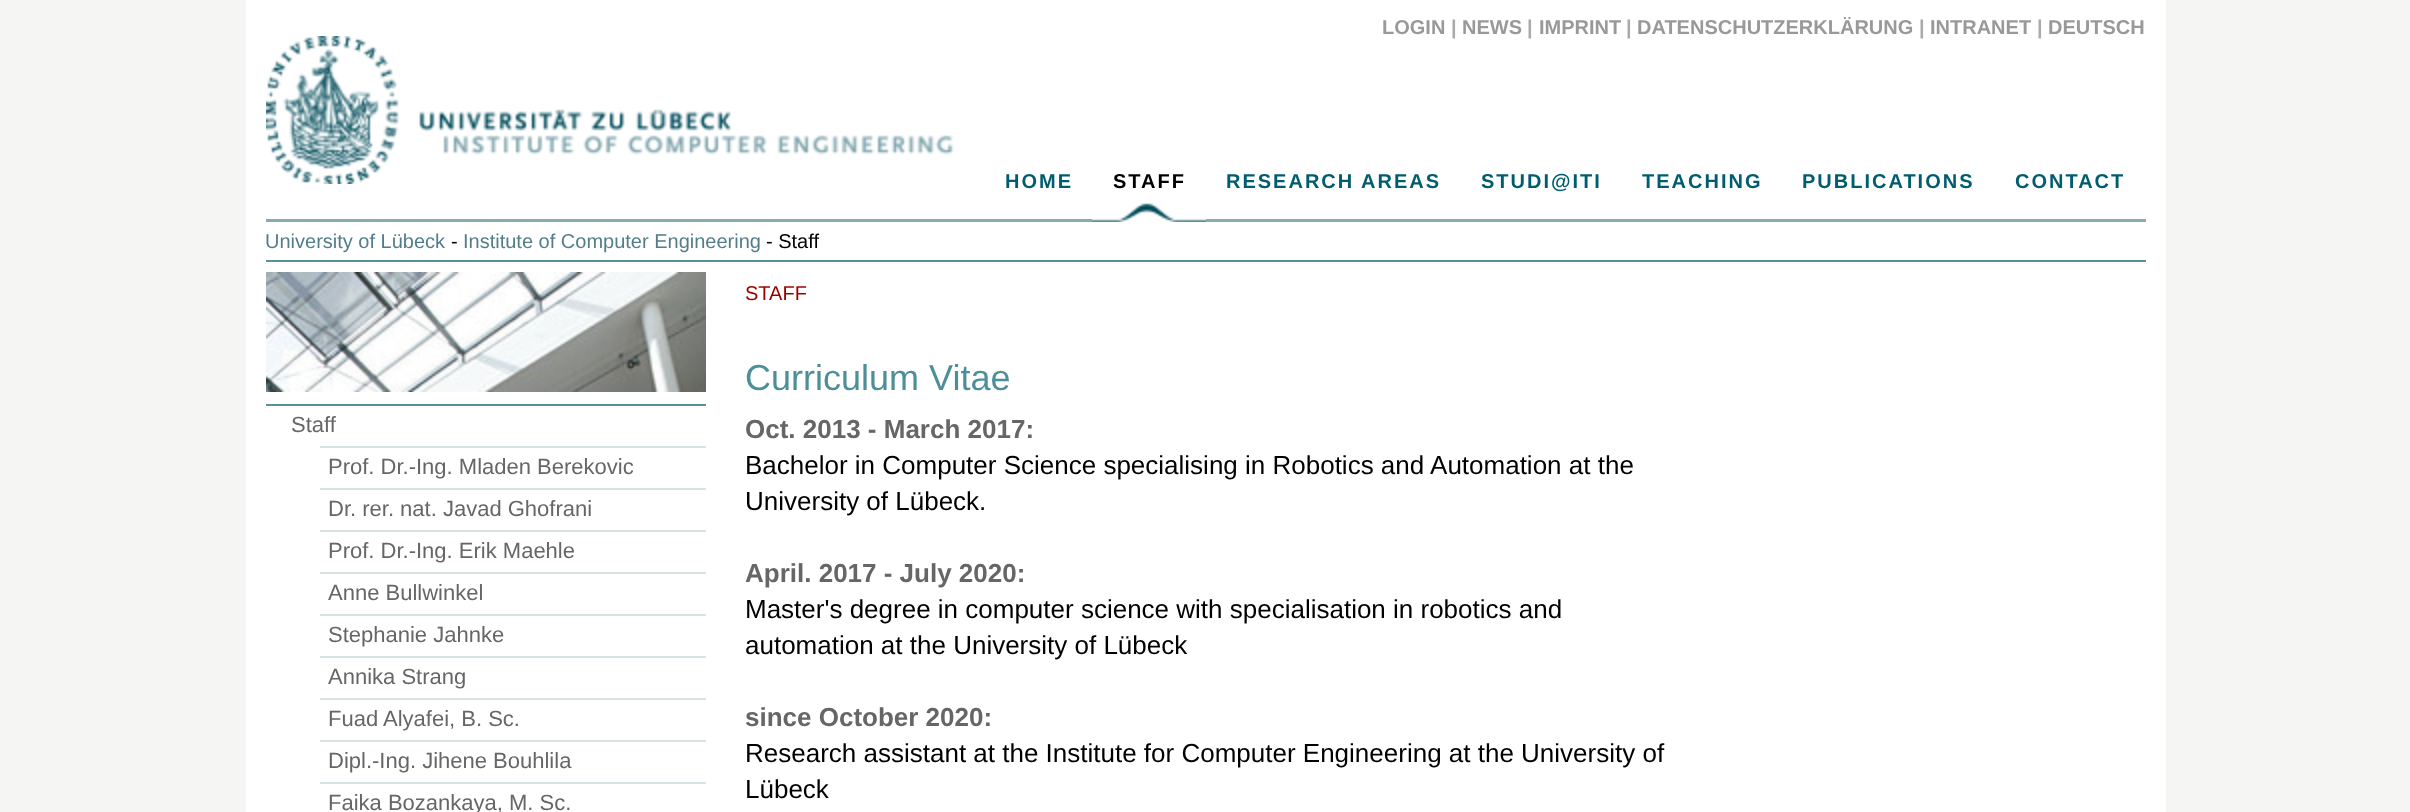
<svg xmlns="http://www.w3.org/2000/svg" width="2410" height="812">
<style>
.a{font:bold 20px Liberation Sans;fill:#999}
.b{font:bold 20px Liberation Sans;fill:#aaa}
.c{font:bold 20px Liberation Sans;letter-spacing:2px;fill:#005d6f}
.d{font:bold 20px Liberation Sans;letter-spacing:2px;fill:#000}
.e{font:20px Liberation Sans;fill:#537e89}
.f{font:20px Liberation Sans;fill:#000}
.g{font:22px Liberation Sans;fill:#666}
.h{font:20px Liberation Sans;fill:#900}
.i{font:36px Liberation Sans;fill:#4c8f99}
.j{font:bold 26px Liberation Sans;fill:#666}
.k{font:26px Liberation Sans;fill:#000}
</style>
<rect width="100%" height="100%" fill="#f5f6f3"/>
<path fill="#fff" d="M246 0h1920v812H246z"/>
<image href="1.png" x="266" y="36" width="688" height="148"/>
<path fill="#85abb3" d="M266 219h1880v3H266z"/>
<path fill="#fff" d="M1092 219h114v3H1092z"/>
<image href="2.png" x="1092" y="203" width="114" height="19"/>
<path fill="#5c8f99" d="M266 260h1880v2H266z"/>
<image href="3.png" x="266" y="272" width="440" height="120"/>
<path fill="#5c8f99" d="M266 404h440v2H266z"/>
<path fill="#d6e3e5" d="M320 446h386v2H320z"/>
<path fill="#d6e3e5" d="M320 488h386v2H320z"/>
<path fill="#d6e3e5" d="M320 530h386v2H320z"/>
<path fill="#d6e3e5" d="M320 572h386v2H320z"/>
<path fill="#d6e3e5" d="M320 614h386v2H320z"/>
<path fill="#d6e3e5" d="M320 656h386v2H320z"/>
<path fill="#d6e3e5" d="M320 698h386v2H320z"/>
<path fill="#d6e3e5" d="M320 740h386v2H320z"/>
<path fill="#d6e3e5" d="M320 782h386v2H320z"/>
<text class="a" x="1382" y="34">LOGIN</text>
<text class="b" x="1451" y="34">|</text>
<text class="a" x="1462" y="34">NEWS</text>
<text class="b" x="1527" y="34">|</text>
<text class="a" x="1539" y="34">IMPRINT</text>
<text class="b" x="1626" y="34">|</text>
<text class="a" x="1637" y="34">DATENSCHUTZERKLÄRUNG</text>
<text class="b" x="1919" y="34">|</text>
<text class="a" x="1930" y="34">INTRANET</text>
<text class="b" x="2037" y="34">|</text>
<text class="a" x="2048" y="34">DEUTSCH</text>
<text class="c" x="1005" y="188">HOME</text>
<text class="d" x="1113" y="188">STAFF</text>
<text class="c" x="1226" y="188">RESEARCH AREAS</text>
<text class="c" x="1481" y="188">STUDI@ITI</text>
<text class="c" x="1642" y="188">TEACHING</text>
<text class="c" x="1802" y="188">PUBLICATIONS</text>
<text class="c" x="2015" y="188">CONTACT</text>
<text class="e" x="265" y="248">University of Lübeck</text>
<text class="f" x="451" y="248">-</text>
<text class="e" x="463" y="248">Institute of Computer Engineering</text>
<text class="f" x="766" y="248">- Staff</text>
<text class="g" x="291" y="432">Staff</text>
<text class="g" x="328" y="474">Prof. Dr.-Ing. Mladen Berekovic</text>
<text class="g" x="328" y="516">Dr. rer. nat. Javad Ghofrani</text>
<text class="g" x="328" y="558">Prof. Dr.-Ing. Erik Maehle</text>
<text class="g" x="328" y="600">Anne Bullwinkel</text>
<text class="g" x="328" y="642">Stephanie Jahnke</text>
<text class="g" x="328" y="684">Annika Strang</text>
<text class="g" x="328" y="726">Fuad Alyafei, B. Sc.</text>
<text class="g" x="328" y="768">Dipl.-Ing. Jihene Bouhlila</text>
<text class="g" x="328" y="810">Faika Bozankaya, M. Sc.</text>
<text class="h" x="745" y="300">STAFF</text>
<text class="i" x="745" y="390">Curriculum Vitae</text>
<text class="j" x="745" y="438">Oct. 2013 - March 2017:</text>
<text class="k" x="745" y="474">Bachelor in Computer Science specialising in Robotics and Automation at the</text>
<text class="k" x="745" y="510">University of Lübeck.</text>
<text class="j" x="745" y="582">April. 2017 - July 2020:</text>
<text class="k" x="745" y="618">Master's degree in computer science with specialisation in robotics and</text>
<text class="k" x="745" y="654">automation at the University of Lübeck</text>
<text class="j" x="745" y="726">since October 2020:</text>
<text class="k" x="745" y="762">Research assistant at the Institute for Computer Engineering at the University of</text>
<text class="k" x="745" y="798">Lübeck</text>
</svg>
